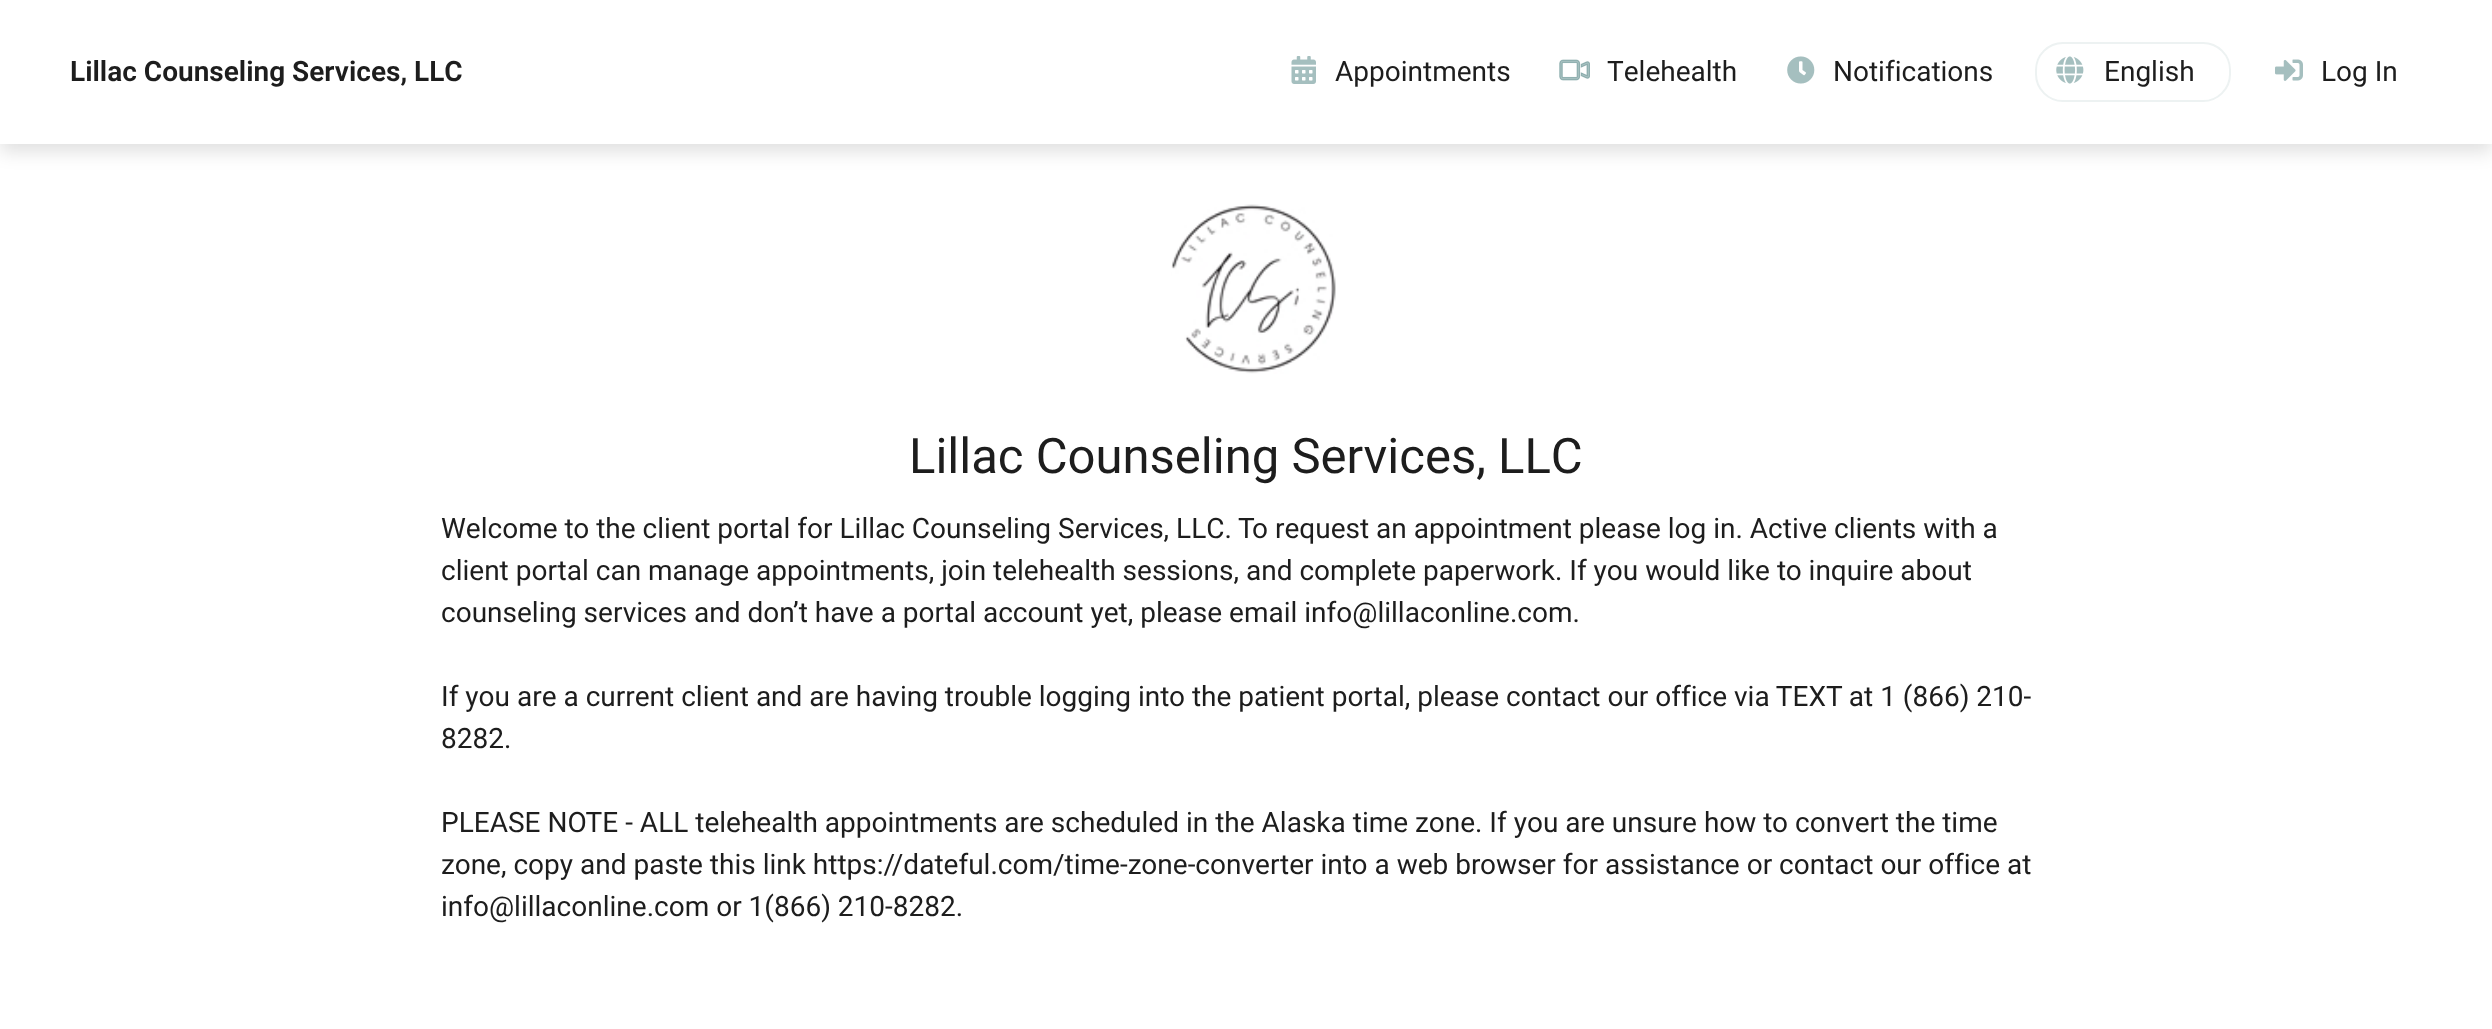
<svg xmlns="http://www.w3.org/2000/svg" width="2492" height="1029">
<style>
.a{font:600 28px Heebo;fill:#1d1d1d}
.b{font:28px Heebo;fill:#1d1d1d}
.c{font:49px Heebo;fill:#1d1d1d}
</style>
<rect width="100%" height="100%" fill="#fff"/>
<path fill="#0000001f" filter="blur(9px)" d="M0 9h2492v143H0z"/>
<path fill="#fff" d="M0 0h2492v144H0z"/>
<image href="1.png" x="1291" y="56" width="25" height="28"/>
<image href="2.png" x="1559" y="59" width="31" height="22"/>
<image href="3.png" x="1787" y="56" width="28" height="28"/>
<rect fill="none" stroke="#edf2f2" stroke-width="2" x="2036" y="43" width="194" height="58" rx="27"/>
<image href="4.png" x="2056" y="56" width="28" height="28"/>
<image href="5.png" x="2275" y="59" width="28" height="22"/>
<image href="6.png" x="1171" y="204" width="165" height="170"/>
<text class="a" x="70" y="81">Lillac Counseling Services, LLC</text>
<text class="b" x="1335" y="81">Appointments</text>
<text class="b" x="1607" y="81">Telehealth</text>
<text class="b" x="1833" y="81">Notifications</text>
<text class="b" x="2104" y="81">English</text>
<text class="b" x="2321" y="81">Log In</text>
<text class="c" x="909" y="473">Lillac Counseling Services, LLC</text>
<text class="b" x="441" y="538">Welcome to the client portal for Lillac Counseling Services, LLC. To request an appointment please log in. Active clients with a</text>
<text class="b" x="441" y="580">client portal can manage appointments, join telehealth sessions, and complete paperwork. If you would like to inquire about</text>
<text class="b" x="441" y="622">counseling services and don’t have a portal account yet, please email info@lillaconline.com.</text>
<text class="b" x="441" y="706">If you are a current client and are having trouble logging into the patient portal, please contact our office via TEXT at 1 (866) 210-</text>
<text class="b" x="441" y="748">8282.</text>
<text class="b" x="441" y="832">PLEASE NOTE - ALL telehealth appointments are scheduled in the Alaska time zone. If you are unsure how to convert the time</text>
<text class="b" x="441" y="874">zone, copy and paste this link https://dateful.com/time-zone-converter into a web browser for assistance or contact our office at</text>
<text class="b" x="441" y="916">info@lillaconline.com or 1(866) 210-8282.</text>
</svg>
